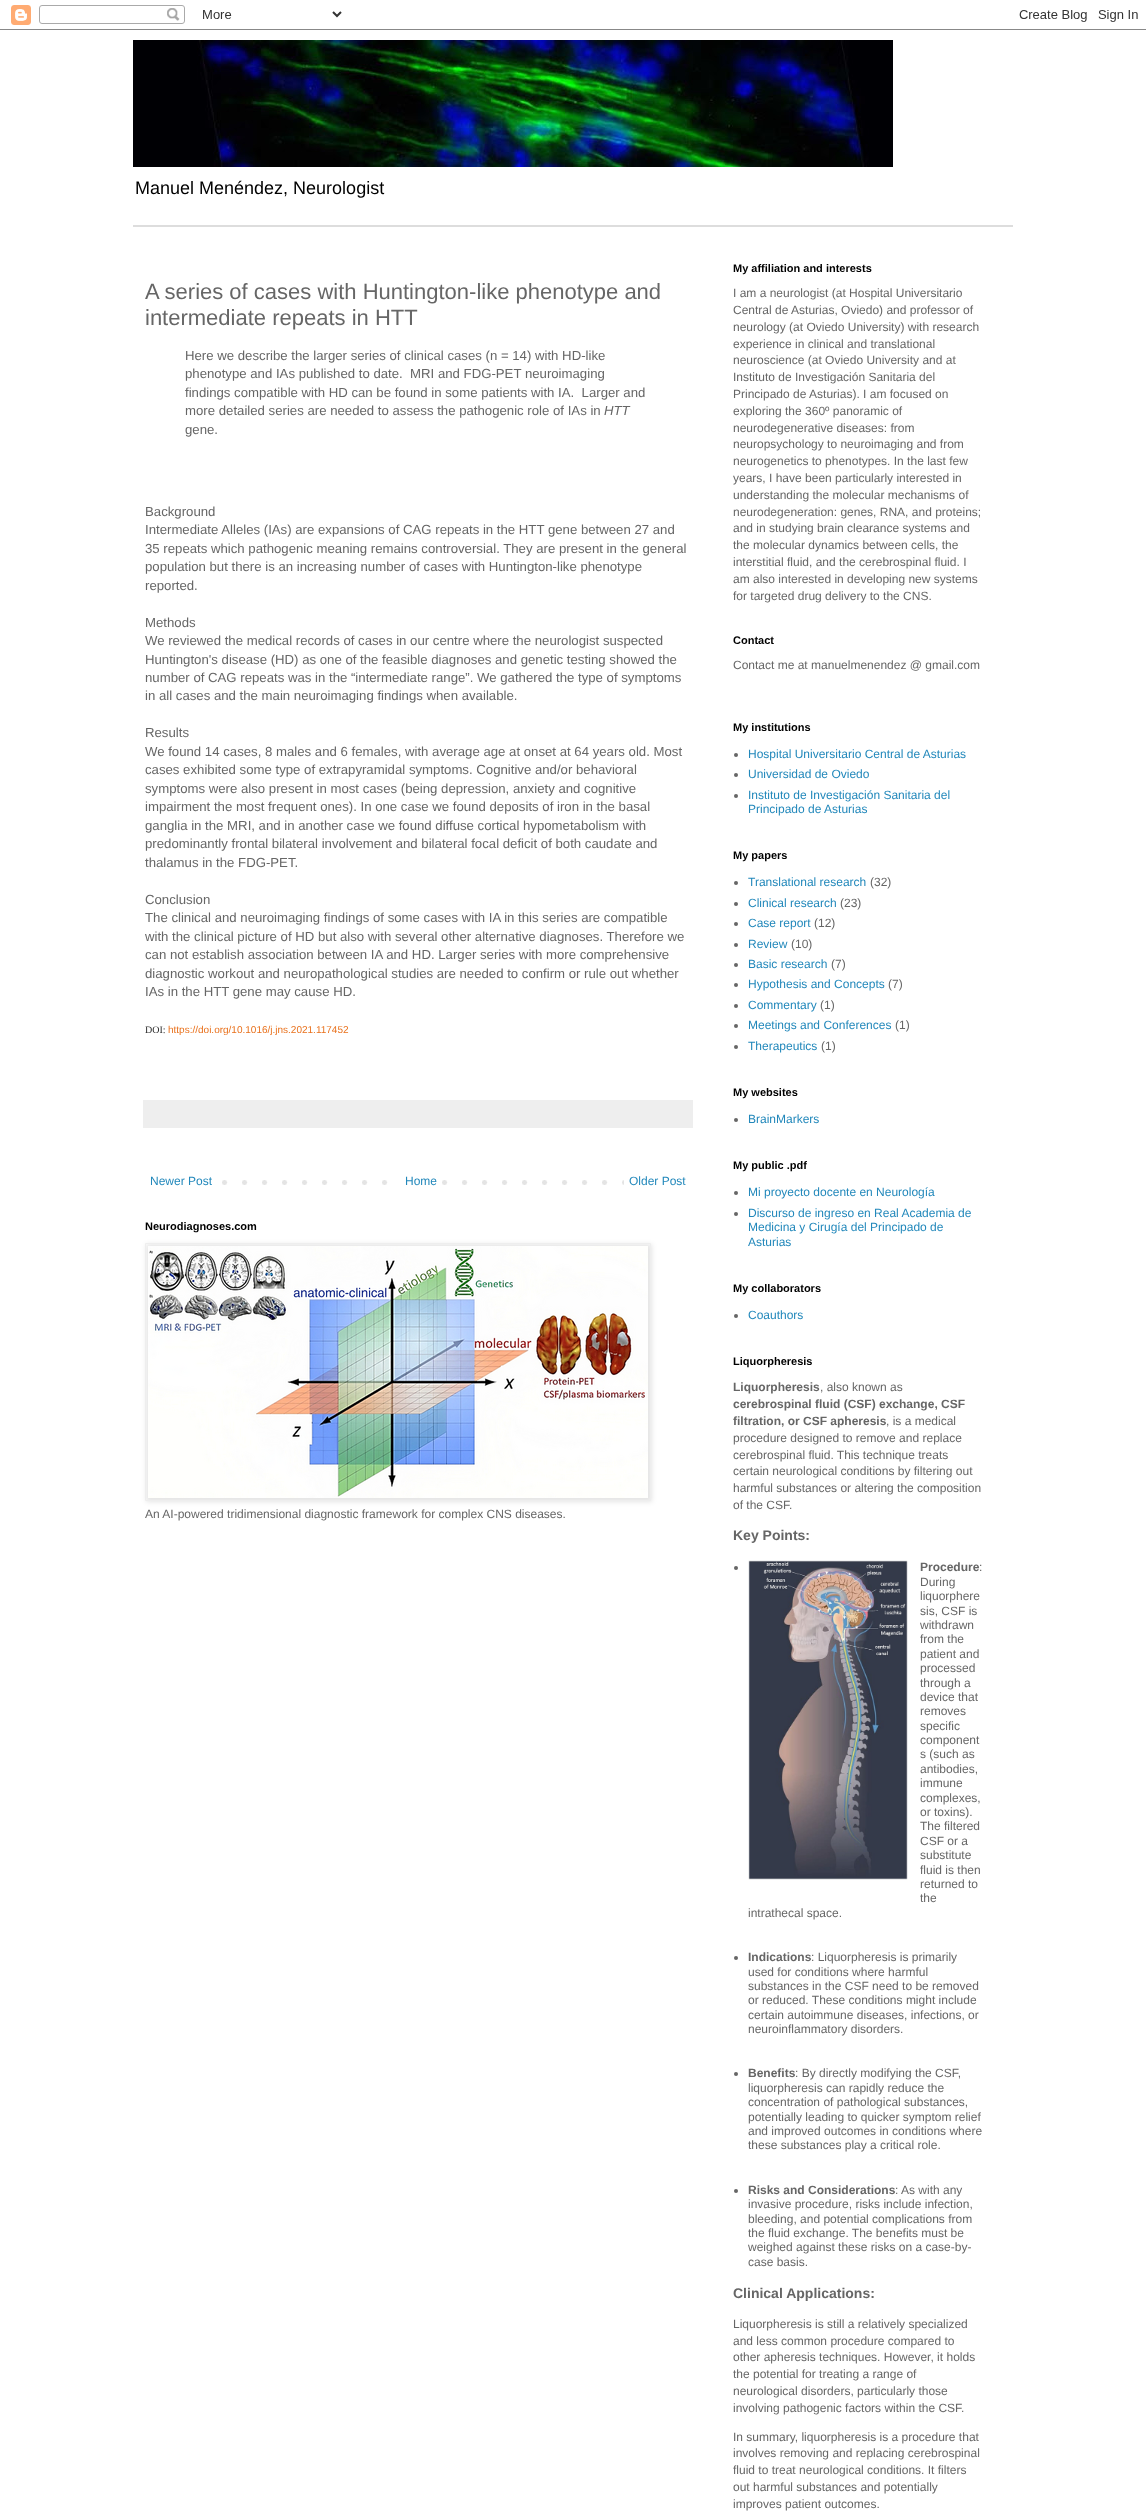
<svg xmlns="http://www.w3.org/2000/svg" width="1146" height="2520">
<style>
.a{font:18px Liberation Sans;fill:#000}
.b{font:22px Liberation Sans;fill:#666}
.c{font:13.2px Liberation Sans;fill:#666}
.d{font:italic 13.2px Liberation Sans;fill:#666}
.e{font:10px Liberation Serif;fill:#2e2e2e}
.f{font:10px Liberation Sans;fill:#e9711c}
.g{font:12px Liberation Sans;fill:#28b}
.h{font:bold 11px Liberation Sans;fill:#000}
.i{font:12px Liberation Sans;fill:#666}
.j{font:bold 12px Liberation Sans;fill:#666}
.k{font:bold 14px Liberation Sans;fill:#666}
</style>
<rect width="100%" height="100%" fill="#fff"/>
<image href="1.png" x="0" y="5" width="1146" height="25"/>
<image href="2.png" x="133" y="40" width="760" height="127"/>
<path fill="#ddd" d="M133 225h880v2H133z"/>
<path fill="#eee" d="M143 1100h550v28H143z"/>
<image href="3.png" x="222" y="1180" width="402" height="5"/>
<path fill="#fff" d="M402 1180h26v5H402z"/>
<path fill="#0000001a" filter="blur(2.5px)" d="M146 1244h506v258H146z"/>
<path fill="none" stroke="#eee" d="M145.5 1243.5h505v257H145.5z"/>
<image href="4.png" x="148" y="1246" width="500" height="252"/>
<circle fill="#666" cx="736" cy="755" r="2"/>
<circle fill="#666" cx="736" cy="775" r="2"/>
<circle fill="#666" cx="736" cy="796" r="2"/>
<circle fill="#666" cx="736" cy="883" r="2"/>
<circle fill="#666" cx="736" cy="904" r="2"/>
<circle fill="#666" cx="736" cy="924" r="2"/>
<circle fill="#666" cx="736" cy="945" r="2"/>
<circle fill="#666" cx="736" cy="965" r="2"/>
<circle fill="#666" cx="736" cy="985" r="2"/>
<circle fill="#666" cx="736" cy="1006" r="2"/>
<circle fill="#666" cx="736" cy="1026" r="2"/>
<circle fill="#666" cx="736" cy="1047" r="2"/>
<circle fill="#666" cx="736" cy="1120" r="2"/>
<circle fill="#666" cx="736" cy="1193" r="2"/>
<circle fill="#666" cx="736" cy="1214" r="2"/>
<circle fill="#666" cx="736" cy="1316" r="2"/>
<circle fill="#666" cx="736" cy="1568" r="2"/>
<image href="5.png" x="748" y="1560" width="160" height="320"/>
<circle fill="#666" cx="736" cy="1958" r="2"/>
<circle fill="#666" cx="736" cy="2074" r="2"/>
<circle fill="#666" cx="736" cy="2191" r="2"/>
<text class="a" x="135" y="194">Manuel Menéndez, Neurologist</text>
<text class="b" x="145" y="299">A series of cases with Huntington-like phenotype and</text>
<text class="b" x="145" y="325">intermediate repeats in HTT</text>
<text class="c" x="185" y="360">Here we describe the larger series of clinical cases (n = 14) with HD-like</text>
<text class="c" xml:space="preserve" x="185" y="378">phenotype and IAs published to date.  MRI and FDG-PET neuroimaging</text>
<text class="c" xml:space="preserve" x="185" y="397">findings compatible with HD can be found in some patients with IA.  Larger and</text>
<text class="c" x="185" y="415">more detailed series are needed to assess the pathogenic role of IAs in</text>
<text class="d" x="604" y="415">HTT</text>
<text class="c" x="185" y="434">gene.</text>
<text class="c" x="145" y="516">Background</text>
<text class="c" x="145" y="534">Intermediate Alleles (IAs) are expansions of CAG repeats in the HTT gene between 27 and</text>
<text class="c" x="145" y="553">35 repeats which pathogenic meaning remains controversial. They are present in the general</text>
<text class="c" x="145" y="571">population but there is an increasing number of cases with Huntington-like phenotype</text>
<text class="c" x="145" y="590">reported.</text>
<text class="c" x="145" y="627">Methods</text>
<text class="c" x="145" y="645">We reviewed the medical records of cases in our centre where the neurologist suspected</text>
<text class="c" x="145" y="664">Huntington's disease (HD) as one of the feasible diagnoses and genetic testing showed the</text>
<text class="c" x="145" y="682">number of CAG repeats was in the “intermediate range”. We gathered the type of symptoms</text>
<text class="c" x="145" y="700">in all cases and the main neuroimaging findings when available.</text>
<text class="c" x="145" y="737">Results</text>
<text class="c" x="145" y="756">We found 14 cases, 8 males and 6 females, with average age at onset at 64 years old. Most</text>
<text class="c" x="145" y="774">cases exhibited some type of extrapyramidal symptoms. Cognitive and/or behavioral</text>
<text class="c" x="145" y="793">symptoms were also present in most cases (being depression, anxiety and cognitive</text>
<text class="c" x="145" y="811">impairment the most frequent ones). In one case we found deposits of iron in the basal</text>
<text class="c" x="145" y="830">ganglia in the MRI, and in another case we found diffuse cortical hypometabolism with</text>
<text class="c" x="145" y="848">predominantly frontal bilateral involvement and bilateral focal deficit of both caudate and</text>
<text class="c" x="145" y="867">thalamus in the FDG-PET.</text>
<text class="c" x="145" y="904">Conclusion</text>
<text class="c" x="145" y="922">The clinical and neuroimaging findings of some cases with IA in this series are compatible</text>
<text class="c" x="145" y="941">with the clinical picture of HD but also with several other alternative diagnoses. Therefore we</text>
<text class="c" x="145" y="959">can not establish association between IA and HD. Larger series with more comprehensive</text>
<text class="c" x="145" y="978">diagnostic workout and neuropathological studies are needed to confirm or rule out whether</text>
<text class="c" x="145" y="996">IAs in the HTT gene may cause HD.</text>
<text class="e" x="145" y="1033">DOI:</text>
<text class="f" x="168" y="1033">https://doi.org/10.1016/j.jns.2021.117452</text>
<text class="g" x="150" y="1185">Newer Post</text>
<text class="g" x="405" y="1185">Home</text>
<text class="g" x="629" y="1185">Older Post</text>
<text class="h" x="145" y="1230">Neurodiagnoses.com</text>
<text class="i" x="145" y="1518">An AI-powered tridimensional diagnostic framework for complex CNS diseases.</text>
<text class="h" x="733" y="272">My affiliation and interests</text>
<text class="i" x="733" y="297">I am a neurologist (at Hospital Universitario</text>
<text class="i" x="733" y="314">Central de Asturias, Oviedo) and professor of</text>
<text class="i" x="733" y="331">neurology (at Oviedo University) with research</text>
<text class="i" x="733" y="348">experience in clinical and translational</text>
<text class="i" x="733" y="364">neuroscience (at Oviedo University and at</text>
<text class="i" x="733" y="381">Instituto de Investigación Sanitaria del</text>
<text class="i" x="733" y="398">Principado de Asturias). I am focused on</text>
<text class="i" x="733" y="415">exploring the 360º panoramic of</text>
<text class="i" x="733" y="432">neurodegenerative diseases: from</text>
<text class="i" x="733" y="448">neuropsychology to neuroimaging and from</text>
<text class="i" x="733" y="465">neurogenetics to phenotypes. In the last few</text>
<text class="i" x="733" y="482">years, I have been particularly interested in</text>
<text class="i" x="733" y="499">understanding the molecular mechanisms of</text>
<text class="i" x="733" y="516">neurodegeneration: genes, RNA, and proteins;</text>
<text class="i" x="733" y="532">and in studying brain clearance systems and</text>
<text class="i" x="733" y="549">the molecular dynamics between cells, the</text>
<text class="i" x="733" y="566">interstitial fluid, and the cerebrospinal fluid. I</text>
<text class="i" x="733" y="583">am also interested in developing new systems</text>
<text class="i" x="733" y="600">for targeted drug delivery to the CNS.</text>
<text class="h" x="733" y="644">Contact</text>
<text class="i" x="733" y="669">Contact me at manuelmenendez @ gmail.com</text>
<text class="h" x="733" y="731">My institutions</text>
<text class="g" x="748" y="758">Hospital Universitario Central de Asturias</text>
<text class="g" x="748" y="778">Universidad de Oviedo</text>
<text class="g" x="748" y="799">Instituto de Investigación Sanitaria del</text>
<text class="g" x="748" y="813">Principado de Asturias</text>
<text class="h" x="733" y="859">My papers</text>
<text class="g" x="748" y="886">Translational research</text>
<text class="i" x="870" y="886">(32)</text>
<text class="g" x="748" y="907">Clinical research</text>
<text class="i" x="840" y="907">(23)</text>
<text class="g" x="748" y="927">Case report</text>
<text class="i" x="814" y="927">(12)</text>
<text class="g" x="748" y="948">Review</text>
<text class="i" x="791" y="948">(10)</text>
<text class="g" x="748" y="968">Basic research</text>
<text class="i" x="831" y="968">(7)</text>
<text class="g" x="748" y="988">Hypothesis and Concepts</text>
<text class="i" x="888" y="988">(7)</text>
<text class="g" x="748" y="1009">Commentary</text>
<text class="i" x="820" y="1009">(1)</text>
<text class="g" x="748" y="1029">Meetings and Conferences</text>
<text class="i" x="895" y="1029">(1)</text>
<text class="g" x="748" y="1050">Therapeutics</text>
<text class="i" x="821" y="1050">(1)</text>
<text class="h" x="733" y="1096">My websites</text>
<text class="g" x="748" y="1123">BrainMarkers</text>
<text class="h" x="733" y="1169">My public .pdf</text>
<text class="g" x="748" y="1196">Mi proyecto docente en Neurología</text>
<text class="g" x="748" y="1217">Discurso de ingreso en Real Academia de</text>
<text class="g" x="748" y="1231">Medicina y Cirugía del Principado de</text>
<text class="g" x="748" y="1246">Asturias</text>
<text class="h" x="733" y="1292">My collaborators</text>
<text class="g" x="748" y="1319">Coauthors</text>
<text class="h" x="733" y="1365">Liquorpheresis</text>
<text class="j" x="733" y="1391">Liquorpheresis</text>
<text class="i" x="820" y="1391">, also known as</text>
<text class="j" x="733" y="1408">cerebrospinal fluid (CSF) exchange, CSF</text>
<text class="j" x="733" y="1425">filtration, or CSF apheresis</text>
<text class="i" x="886" y="1425">, is a medical</text>
<text class="i" x="733" y="1442">procedure designed to remove and replace</text>
<text class="i" x="733" y="1459">cerebrospinal fluid. This technique treats</text>
<text class="i" x="733" y="1475">certain neurological conditions by filtering out</text>
<text class="i" x="733" y="1492">harmful substances or altering the composition</text>
<text class="i" x="733" y="1509">of the CSF.</text>
<text class="k" x="733" y="1540">Key Points:</text>
<text class="j" x="920" y="1571">Procedure</text>
<text class="i" x="979" y="1571">:</text>
<text class="i" x="920" y="1586">During</text>
<text class="i" x="920" y="1600">liquorphere</text>
<text class="i" x="920" y="1615">sis, CSF is</text>
<text class="i" x="920" y="1629">withdrawn</text>
<text class="i" x="920" y="1643">from the</text>
<text class="i" x="920" y="1658">patient and</text>
<text class="i" x="920" y="1672">processed</text>
<text class="i" x="920" y="1687">through a</text>
<text class="i" x="920" y="1701">device that</text>
<text class="i" x="920" y="1715">removes</text>
<text class="i" x="920" y="1730">specific</text>
<text class="i" x="920" y="1744">component</text>
<text class="i" x="920" y="1758">s (such as</text>
<text class="i" x="920" y="1773">antibodies,</text>
<text class="i" x="920" y="1787">immune</text>
<text class="i" x="920" y="1802">complexes,</text>
<text class="i" x="920" y="1816">or toxins).</text>
<text class="i" x="920" y="1830">The filtered</text>
<text class="i" x="920" y="1845">CSF or a</text>
<text class="i" x="920" y="1859">substitute</text>
<text class="i" x="920" y="1874">fluid is then</text>
<text class="i" x="920" y="1888">returned to</text>
<text class="i" x="920" y="1902">the</text>
<text class="i" x="748" y="1917">intrathecal space.</text>
<text class="j" x="748" y="1961">Indications</text>
<text class="i" x="811" y="1961">: Liquorpheresis is primarily</text>
<text class="i" x="748" y="1976">used for conditions where harmful</text>
<text class="i" x="748" y="1990">substances in the CSF need to be removed</text>
<text class="i" x="748" y="2004">or reduced. These conditions might include</text>
<text class="i" x="748" y="2019">certain autoimmune diseases, infections, or</text>
<text class="i" x="748" y="2033">neuroinflammatory disorders.</text>
<text class="j" x="748" y="2077">Benefits</text>
<text class="i" x="795" y="2077">: By directly modifying the CSF,</text>
<text class="i" x="748" y="2092">liquorpheresis can rapidly reduce the</text>
<text class="i" x="748" y="2106">concentration of pathological substances,</text>
<text class="i" x="748" y="2121">potentially leading to quicker symptom relief</text>
<text class="i" x="748" y="2135">and improved outcomes in conditions where</text>
<text class="i" x="748" y="2149">these substances play a critical role.</text>
<text class="j" x="748" y="2194">Risks and Considerations</text>
<text class="i" x="895" y="2194">: As with any</text>
<text class="i" x="748" y="2208">invasive procedure, risks include infection,</text>
<text class="i" x="748" y="2223">bleeding, and potential complications from</text>
<text class="i" x="748" y="2237">the fluid exchange. The benefits must be</text>
<text class="i" x="748" y="2251">weighed against these risks on a case-by-</text>
<text class="i" x="748" y="2266">case basis.</text>
<text class="k" x="733" y="2298">Clinical Applications:</text>
<text class="i" x="733" y="2328">Liquorpheresis is still a relatively specialized</text>
<text class="i" x="733" y="2345">and less common procedure compared to</text>
<text class="i" x="733" y="2361">other apheresis techniques. However, it holds</text>
<text class="i" x="733" y="2378">the potential for treating a range of</text>
<text class="i" x="733" y="2395">neurological disorders, particularly those</text>
<text class="i" x="733" y="2412">involving pathogenic factors within the CSF.</text>
<text class="i" x="733" y="2441">In summary, liquorpheresis is a procedure that</text>
<text class="i" x="733" y="2457">involves removing and replacing cerebrospinal</text>
<text class="i" x="733" y="2474">fluid to treat neurological conditions. It filters</text>
<text class="i" x="733" y="2491">out harmful substances and potentially</text>
<text class="i" x="733" y="2508">improves patient outcomes.</text>
</svg>
